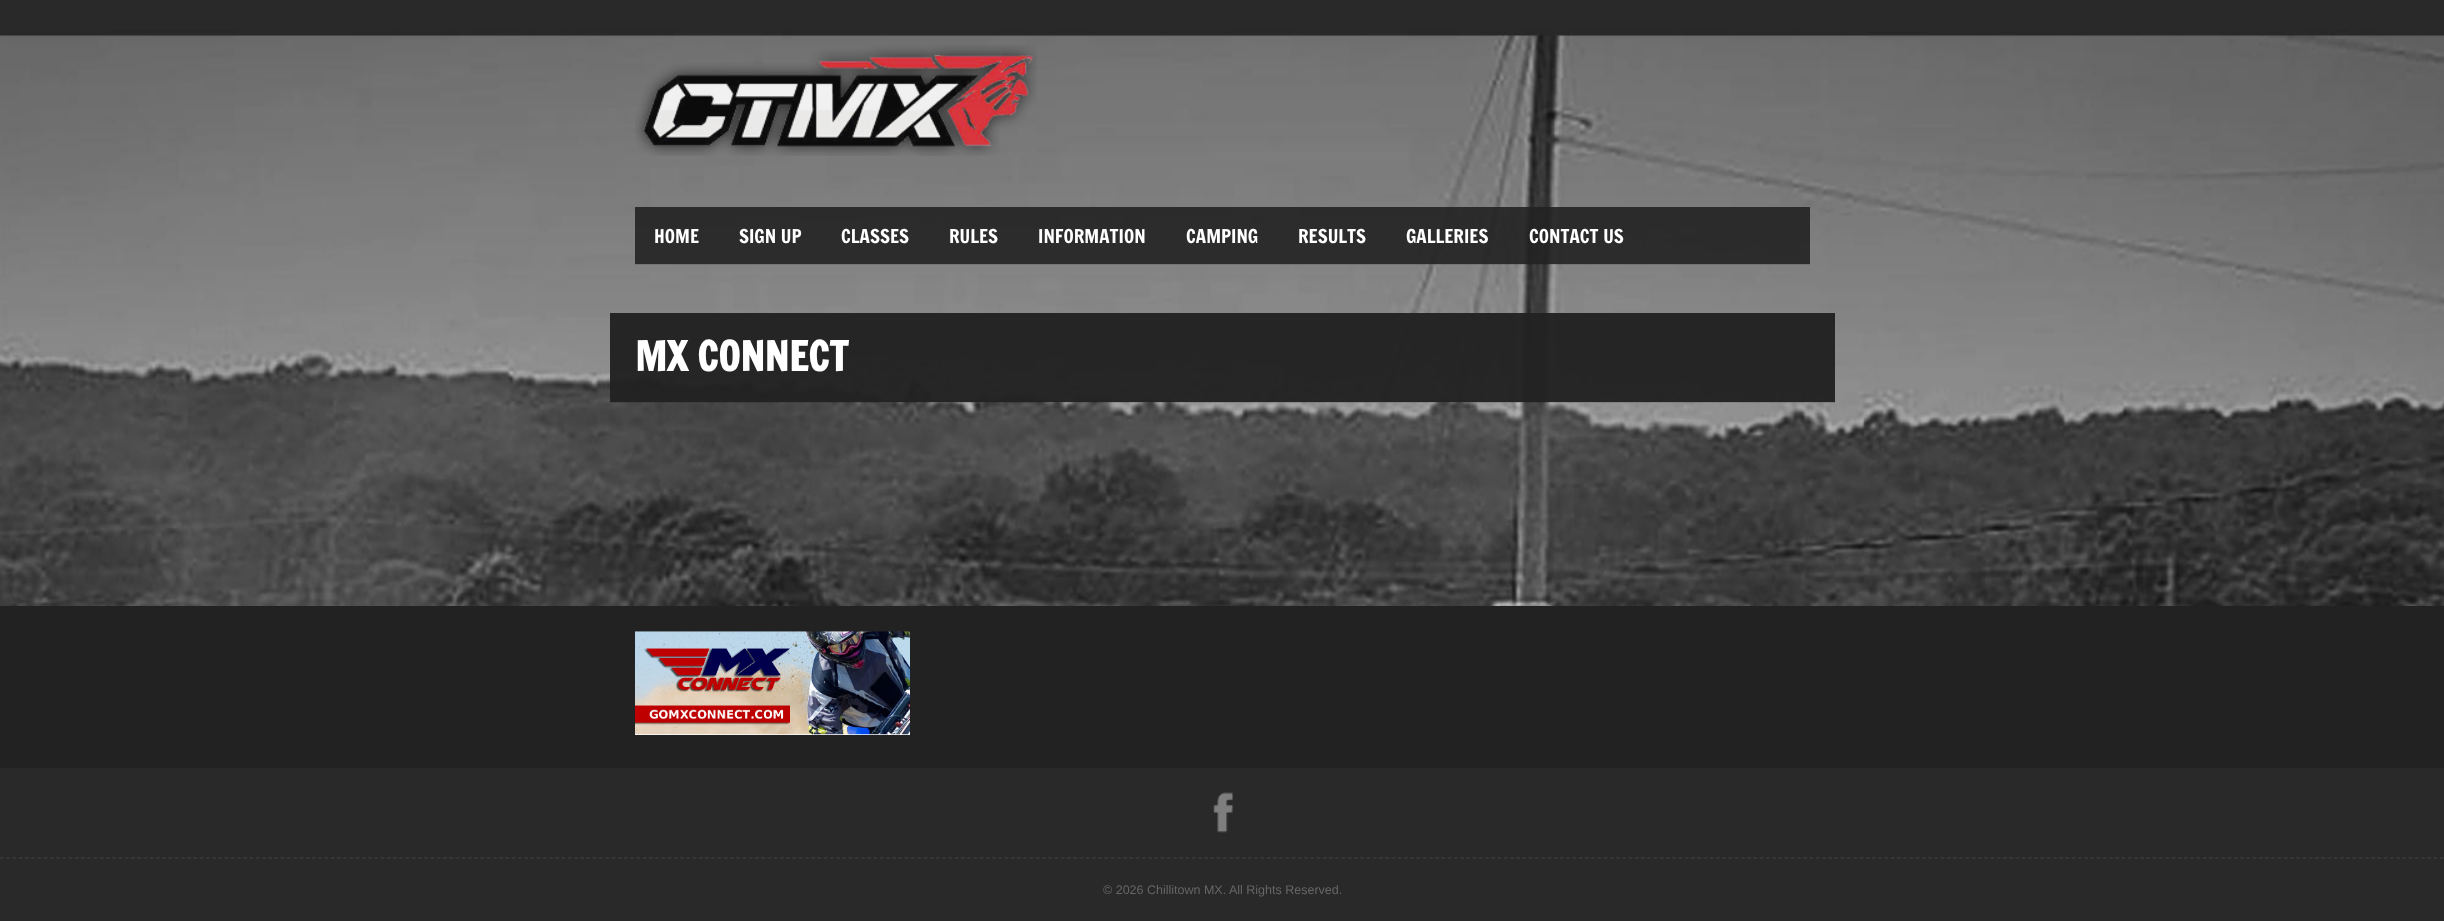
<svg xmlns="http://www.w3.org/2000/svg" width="2444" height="921">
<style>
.a{font:18.75px Francois One;fill:#fff}
.b{font:bold 40px Francois One;fill:#fff}
.c{font:12.5px Liberation Sans;fill:#666}
</style>
<defs>
<clipPath id="clip1"><path d="M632 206h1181v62h-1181zm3 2h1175v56h-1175z" clip-rule="evenodd"/></clipPath>
<clipPath id="clip2"><path d="M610 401h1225v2H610z"/></clipPath>
</defs>
<rect width="100%" height="100%" fill="#fff"/>
<image href="1.png" x="0" y="0" width="2444" height="606"/>
<image href="2.png" x="635" y="45" width="402" height="111"/>
<g clip-path="url(#clip1)">
<path fill="#0000001a" filter="blur(0.5px)" d="M635 209h1175v56H635z"/>
</g>
<path fill="#222222e6" d="M635 207h1175v57H635z"/>
<g clip-path="url(#clip2)">
<path fill="#0000001a" filter="blur(0.5px)" d="M610 315h1225v88H610z"/>
</g>
<path fill="#222222f7" d="M610 313h1225v89H610z"/>
<path fill="#222" d="M0 606h2444v162H0z"/>
<image href="3.png" x="635" y="631" width="275" height="104"/>
<path fill="#292929" d="M0 768h2444v153H0z"/>
<path fill="none" stroke="#444" stroke-width="1.2" stroke-dasharray="3.75 2.49" d="M0 858h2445"/>
<image href="4.png" x="1213" y="792" width="20" height="41"/>
<text class="a" x="654" y="243">HOME</text>
<text class="a" x="739" y="243">SIGN UP</text>
<text class="a" x="841" y="243">CLASSES</text>
<text class="a" x="949" y="243">RULES</text>
<text class="a" x="1038" y="243">INFORMATION</text>
<text class="a" x="1186" y="243">CAMPING</text>
<text class="a" x="1298" y="243">RESULTS</text>
<text class="a" x="1406" y="243">GALLERIES</text>
<text class="a" x="1529" y="243">CONTACT US</text>
<text class="b" x="635" y="371">MX CONNECT</text>
<text class="c" x="1103" y="894">© 2026 Chillitown MX. All Rights Reserved.</text>
</svg>
